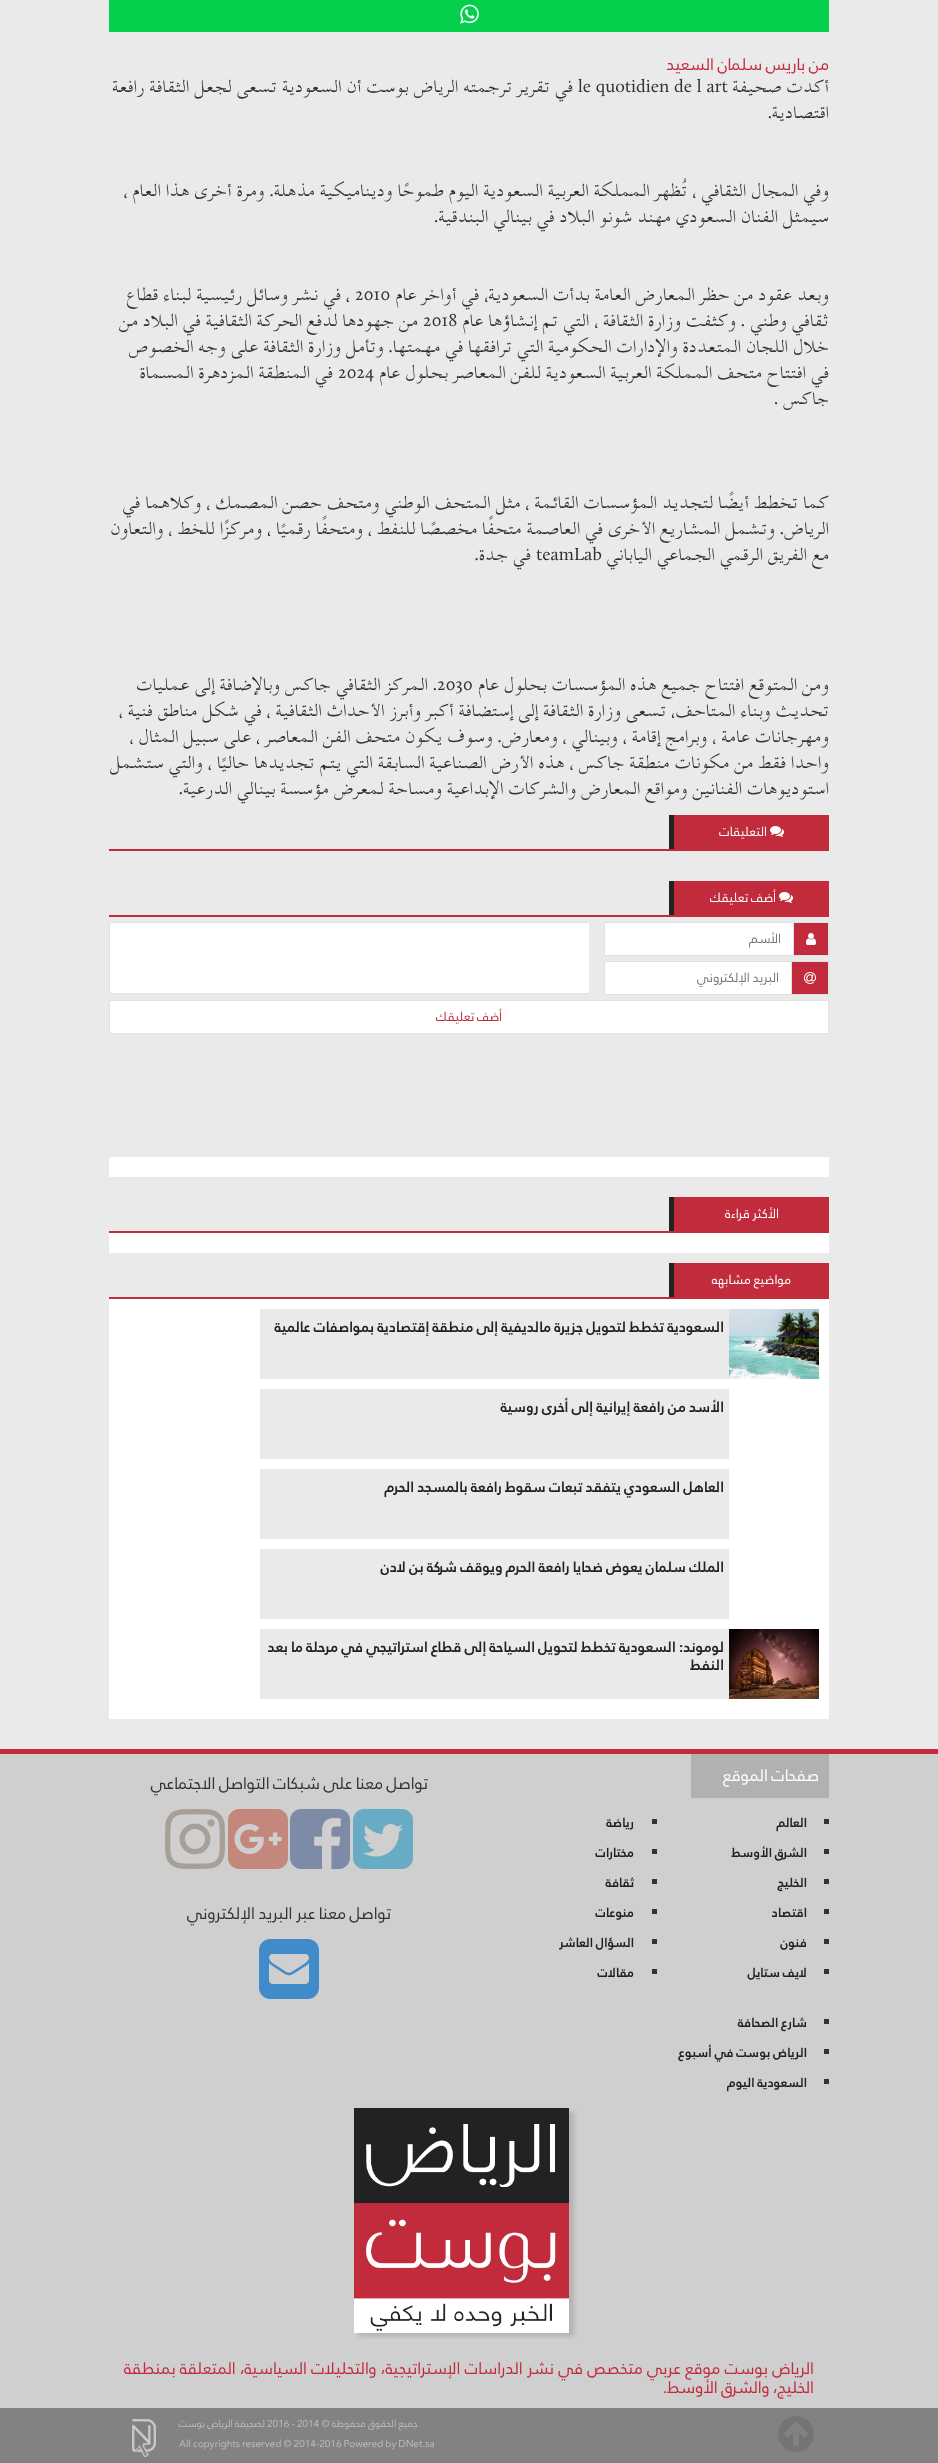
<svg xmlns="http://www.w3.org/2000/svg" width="938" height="2463">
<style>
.a{font:18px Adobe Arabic;direction:rtl;fill:#c12b3b}
.b{font:24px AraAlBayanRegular;direction:rtl;fill:#333}
.c{font:24px AraAlBayanRegular;fill:#333}
.d{font:14px Adobe Arabic;direction:rtl;fill:#fff}
.e{font:14px Adobe Arabic;direction:rtl;fill:#777}
.f{font:14px Adobe Arabic;direction:rtl;fill:#c12b3b}
.g{font:bold 16px Adobe Arabic;direction:rtl;fill:#232222}
.h{font:18px Adobe Arabic;direction:rtl;fill:#fff}
.i{font:bold 14px Adobe Arabic;direction:rtl;fill:#232222}
.j{font:18px Adobe Arabic;direction:rtl;fill:#333}
.k{font:11px Adobe Arabic;direction:rtl;fill:#bbb}
.l{font:11px Adobe Arabic;fill:#bbb}
</style>
<rect width="100%" height="100%" fill="#eaeaea"/>
<path fill="#04d04e" d="M109 0h720v32H109z"/>
<image href="1.png" x="460" y="4" width="19" height="20"/>
<path fill="#c12b3b" d="M109 849h720v2H109z"/>
<path fill="#c12b3b" d="M674 815h155v34H674z"/>
<path fill="#232222" d="M669 815h5v34H669z"/>
<image href="2.png" x="770" y="826" width="14" height="11"/>
<path fill="#c12b3b" d="M109 915h720v2H109z"/>
<path fill="#c12b3b" d="M674 881h155v34H674z"/>
<path fill="#232222" d="M669 881h5v34H669z"/>
<image href="2.png" x="779" y="892" width="14" height="11"/>
<path fill="#c12b3b" stroke="#e1e1e1" d="M793.5 922.5h35v33H793.5z"/>
<image href="3.png" x="806" y="933" width="10" height="12"/>
<path fill="#fff" d="M605 923h188v32H605z"/>
<path fill="#e1e1e1" d="M604 922h189v1H604z"/>
<path fill="#e1e1e1" d="M604 955h189v1H604z"/>
<path fill="#e1e1e1" d="M604 922h1v34H604z"/>
<path fill="#c12b3b" stroke="#e1e1e1" d="M791.5 961.5h37v33H791.5z"/>
<image href="4.png" x="804" y="972" width="12" height="12"/>
<path fill="#fff" d="M605 962h186v32H605z"/>
<path fill="#e1e1e1" d="M604 961h187v1H604z"/>
<path fill="#e1e1e1" d="M604 994h187v1H604z"/>
<path fill="#e1e1e1" d="M604 961h1v34H604z"/>
<path fill="#fff" d="M110 923h479v70H110z"/>
<path fill="#e1e1e1" d="M109 922h480v1H109z"/>
<path fill="#e1e1e1" d="M109 993h480v1H109z"/>
<path fill="#e1e1e1" d="M109 922h1v72H109z"/>
<path fill="#fff" stroke="#e1e1e1" d="M109.5 1000.5h719v33H109.5z"/>
<path fill="#fff" d="M109 1157h720v20H109z"/>
<path fill="#c12b3b" d="M109 1231h720v2H109z"/>
<path fill="#c12b3b" d="M674 1197h155v34H674z"/>
<path fill="#232222" d="M669 1197h5v34H669z"/>
<path fill="#fff" d="M109 1233h720v20H109z"/>
<path fill="#c12b3b" d="M109 1297h720v2H109z"/>
<path fill="#c12b3b" d="M674 1263h155v34H674z"/>
<path fill="#232222" d="M669 1263h5v34H669z"/>
<path fill="#fff" d="M109 1299h720v420H109z"/>
<image href="5.png" x="729" y="1309" width="90" height="70"/>
<path fill="#eaeaea" d="M260 1309h469v70H260z"/>
<path fill="#eaeaea" d="M260 1389h469v70H260z"/>
<path fill="#eaeaea" d="M260 1469h469v70H260z"/>
<path fill="#eaeaea" d="M260 1549h469v70H260z"/>
<image href="6.png" x="729" y="1629" width="90" height="70"/>
<path fill="#eaeaea" d="M260 1629h469v70H260z"/>
<path fill="#cfcfcf" d="M0 1754h938v654H0z"/>
<path fill="#c12b3b" d="M0 1749h938v5H0z"/>
<path fill="#b1b1b1" d="M691 1754h138v44H691z"/>
<path fill="#333" d="M824 1819h5v5H824z"/>
<path fill="#333" d="M824 1849h5v5H824z"/>
<path fill="#333" d="M824 1879h5v5H824z"/>
<path fill="#333" d="M824 1909h5v5H824z"/>
<path fill="#333" d="M824 1939h5v5H824z"/>
<path fill="#333" d="M824 1969h5v5H824z"/>
<path fill="#333" d="M652 1819h5v5H652z"/>
<path fill="#333" d="M652 1849h5v5H652z"/>
<path fill="#333" d="M652 1879h5v5H652z"/>
<path fill="#333" d="M652 1909h5v5H652z"/>
<path fill="#333" d="M652 1939h5v5H652z"/>
<path fill="#333" d="M652 1969h5v5H652z"/>
<path fill="#333" d="M824 2019h5v5H824z"/>
<path fill="#333" d="M824 2049h5v5H824z"/>
<path fill="#333" d="M824 2079h5v5H824z"/>
<image href="7.png" x="353" y="1809" width="60" height="60"/>
<image href="8.png" x="290" y="1809" width="60" height="60"/>
<image href="9.png" x="228" y="1809" width="60" height="60"/>
<image href="10.png" x="165" y="1809" width="60" height="60"/>
<image href="11.png" x="259" y="1939" width="60" height="60"/>
<image href="12.png" x="354" y="2108" width="223" height="231"/>
<path fill="#828282" d="M0 2408h938v55H0z"/>
<image href="13.png" x="778" y="2416" width="36" height="36"/>
<image href="14.png" x="132" y="2419" width="24" height="38"/>
<text class="a" x="829" y="70">من باريس سلمان السعيد</text>
<text class="b" x="829" y="92">أكدت صحيفة</text>
<text class="c" x="578" y="92">le quotidien de l art</text>
<text class="b" x="573" y="92">في تقرير ترجمته الرياض بوست أن السعودية تسعى لجعل الثقافة رافعة</text>
<text class="b" x="829" y="118">اقتصادية.</text>
<text class="b" x="829" y="196">وفي المجال الثقافي ، تُظهر المملكة العربية السعودية اليوم طموحًا وديناميكية مذهلة. ومرة أخرى هذا العام ،</text>
<text class="b" x="829" y="222">سيمثل الفنان السعودي مهند شونو البلاد في بينالي البندقية.</text>
<text class="b" x="829" y="300">وبعد عقود من حظر المعارض العامة بدأت السعودية، في أواخر عام</text>
<text class="c" x="355" y="300">2010</text>
<text class="b" x="350" y="300">، في نشر وسائل رئيسية لبناء قطاع</text>
<text class="b" x="829" y="326">ثقافي وطني . وكثفت وزارة الثقافة ، التي تم إنشاؤها عام</text>
<text class="c" x="423" y="326">2018</text>
<text class="b" x="418" y="326">من جهودها لدفع الحركة الثقافية في البلاد من</text>
<text class="b" x="829" y="352">خلال اللجان المتعددة والإدارات الحكومية التي ترافقها في مهمتها. وتأمل وزارة الثقافة على وجه الخصوص</text>
<text class="b" x="829" y="378">في افتتاح متحف المملكة العربية السعودية للفن المعاصر بحلول عام</text>
<text class="c" x="338" y="378">2024</text>
<text class="b" x="333" y="378">في المنطقة المزدهرة المسماة</text>
<text class="b" x="829" y="404">جاكس .</text>
<text class="b" x="829" y="508">كما تخطط أيضًا لتجديد المؤسسات القائمة ، مثل المتحف الوطني ومتحف حصن المصمك ، وكلاهما في</text>
<text class="b" x="829" y="534">الرياض. وتشمل المشاريع الأخرى في العاصمة متحفًا مخصصًا للنفط ، ومتحفًا رقميًا ، ومركزًا للخط ، والتعاون</text>
<text class="b" x="829" y="560">مع الفريق الرقمي الجماعي الياباني</text>
<text class="c" x="536" y="560">teamLab</text>
<text class="b" x="531" y="560">في جدة.</text>
<text class="b" x="829" y="690">ومن المتوقع افتتاح جميع هذه المؤسسات بحلول عام</text>
<text class="c" x="437" y="690">2030</text>
<text class="b" x="437" y="690">. المركز الثقافي جاكس وبالإضافة إلى عمليات</text>
<text class="b" x="829" y="716">تحديث وبناء المتاحف، تسعى وزارة الثقافة إلى إستضافة أكبر وأبرز الأحداث الثقافية ، في شكل مناطق فنية ،</text>
<text class="b" x="829" y="742">ومهرجانات عامة ، وبرامج إقامة ، وبينالي ، ومعارض. وسوف يكون متحف الفن المعاصر ، على سبيل المثال ،</text>
<text class="b" x="829" y="768">واحدا فقط من مكونات منطقة جاكس ، هذه الأرض الصناعية السابقة التي يتم تجديدها حاليًا ، والتي ستشمل</text>
<text class="b" x="829" y="794">استوديوهات الفنانين ومواقع المعارض والشركات الإبداعية ومساحة لمعرض مؤسسة بينالي الدرعية.</text>
<text class="d" x="767" y="836">التعليقات</text>
<text class="d" x="776" y="902">أضف تعليقك</text>
<text class="e" x="781" y="943">الأسم</text>
<text class="e" x="779" y="982">البريد الإلكتروني</text>
<text class="f" x="502" y="1021">أضف تعليقك</text>
<text class="d" x="779" y="1218">الأكثر قراءة</text>
<text class="d" x="791" y="1284">مواضيع مشابهه</text>
<text class="g" x="724" y="1332">السعودية تخطط لتحويل جزيرة مالديفية إلى منطقة إقتصادية بمواصفات عالمية</text>
<text class="g" x="724" y="1412">الأسد من رافعة إيرانية إلى أخرى روسية</text>
<text class="g" x="724" y="1492">العاهل السعودي يتفقد تبعات سقوط رافعة بالمسجد الحرم</text>
<text class="g" x="724" y="1572">الملك سلمان يعوض ضحايا رافعة الحرم ويوقف شركة بن لادن</text>
<text class="g" x="724" y="1652">لوموند: السعودية تخطط لتحويل السياحة إلى قطاع استراتيجي في مرحلة ما بعد</text>
<text class="g" x="724" y="1670">النفط</text>
<text class="h" x="819" y="1781">صفحات الموقع</text>
<text class="i" x="807" y="1827">العالم</text>
<text class="i" x="807" y="1857">الشرق الأوسط</text>
<text class="i" x="807" y="1887">الخليج</text>
<text class="i" x="807" y="1917">اقتصاد</text>
<text class="i" x="807" y="1947">فنون</text>
<text class="i" x="807" y="1977">لايف ستايل</text>
<text class="i" x="634" y="1827">رياضة</text>
<text class="i" x="634" y="1857">مختارات</text>
<text class="i" x="634" y="1887">ثقافة</text>
<text class="i" x="634" y="1917">منوعات</text>
<text class="i" x="634" y="1947">السؤال العاشر</text>
<text class="i" x="634" y="1977">مقالات</text>
<text class="i" x="807" y="2027">شارع الصحافة</text>
<text class="i" x="807" y="2057">الرياض بوست في أسبوع</text>
<text class="i" x="807" y="2087">السعودية اليوم</text>
<text class="j" x="428" y="1789">تواصل معنا على شبكات التواصل الاجتماعي</text>
<text class="j" x="391" y="1919">تواصل معنا عبر البريد الإلكتروني</text>
<text class="a" x="814" y="2374" word-spacing="0.75">الرياض بوست موقع عربي متخصص في نشر الدراسات الإستراتيجية، والتحليلات السياسية، المتعلقة بمنطقة</text>
<text class="a" x="814" y="2393">الخليج، والشرق الأوسط.</text>
<text class="k" x="418" y="2427">جميع الحقوق محفوظة ©</text>
<text class="l" x="267" y="2427">2016 - 2014</text>
<text class="k" x="265" y="2427">لصحيفة الرياض بوست</text>
<text class="l" x="179" y="2447">All copyrights reserved © 2014-2016 Powered by DNet.sa</text>
</svg>
